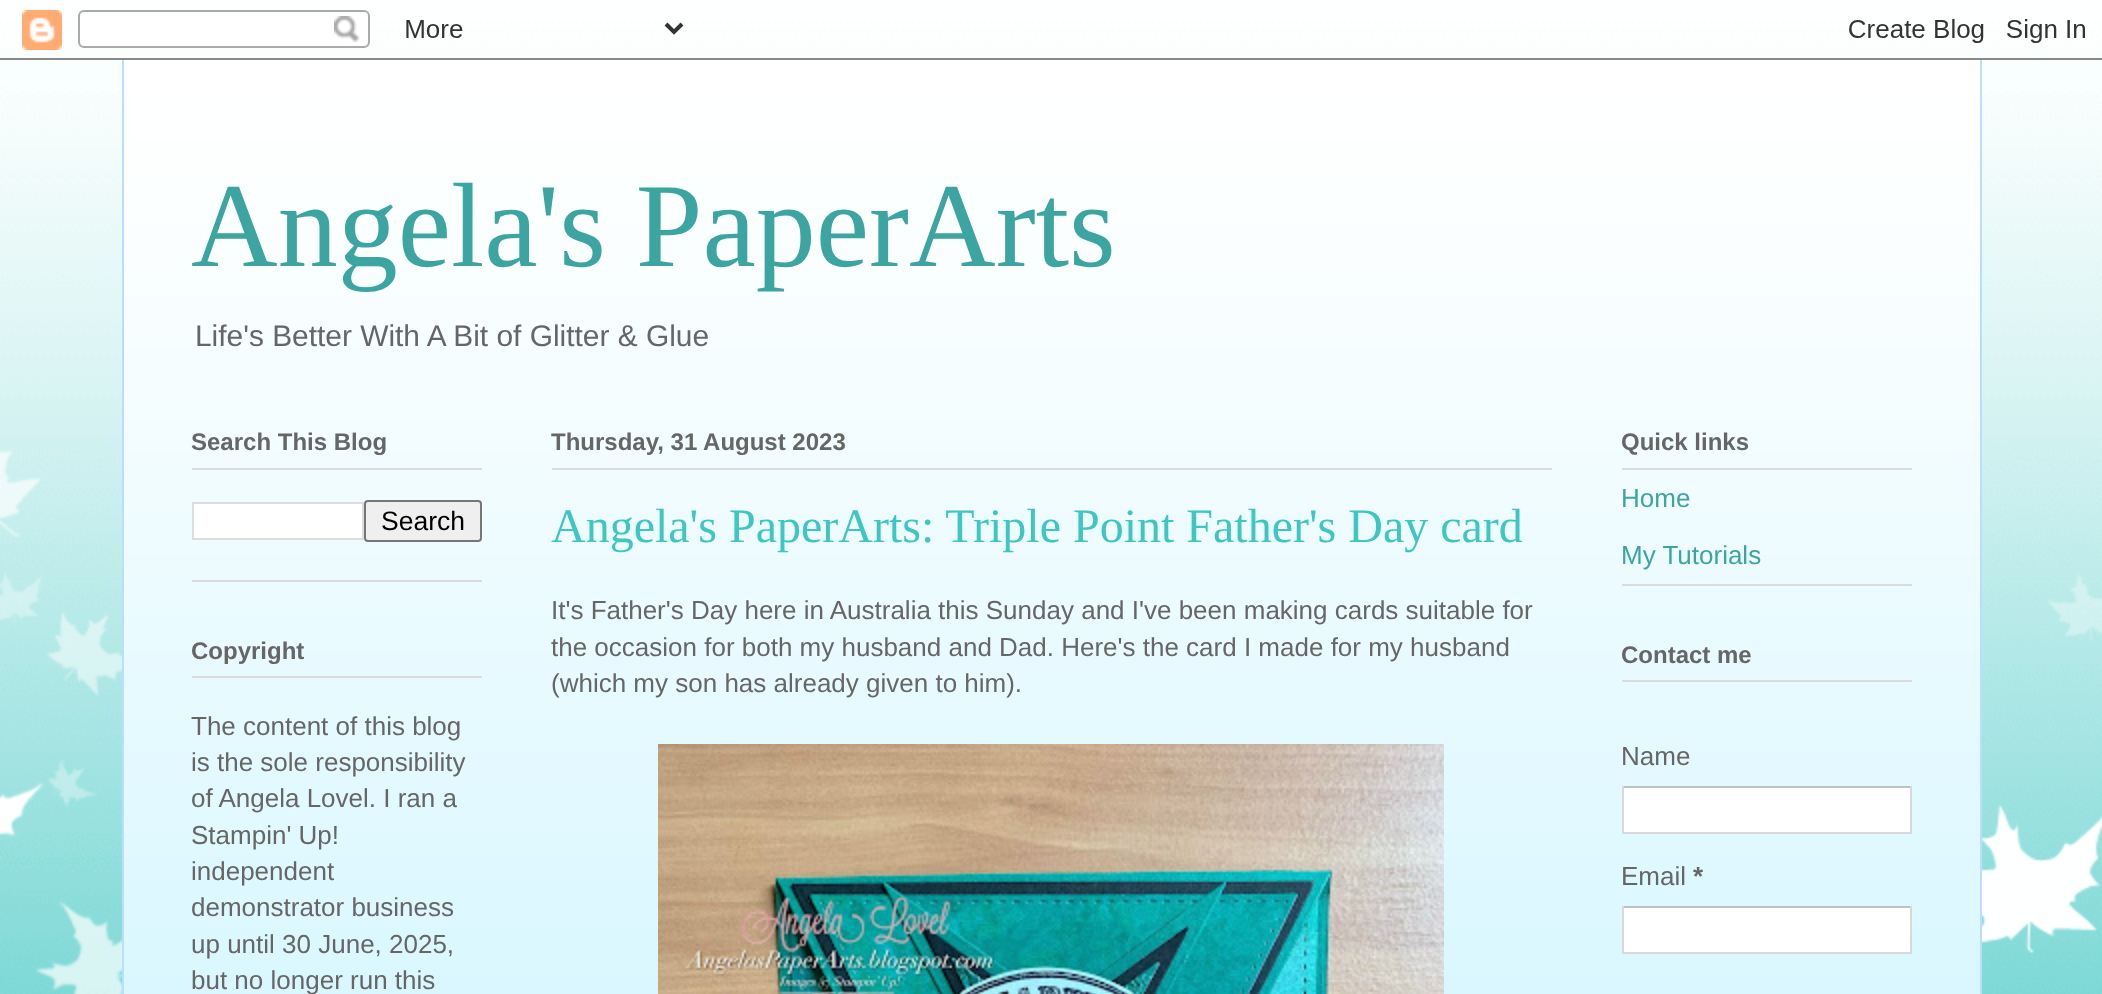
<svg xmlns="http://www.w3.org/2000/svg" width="2102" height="994">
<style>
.a{font:120px Liberation Serif;fill:#3da5a1}
.b{font:29.9px Liberation Sans;fill:#666}
.c{font:bold 24px Liberation Sans;fill:#666}
.d{font:26.5px Liberation Sans;fill:#000}
.e{font:26px Liberation Sans;fill:#666}
.f{font:48px Liberation Serif;fill:#3dc6c2}
.g{font:26px Liberation Sans;fill:#3da5a1}
.h{font:bold 26px Liberation Sans;fill:#666}
</style>
<rect width="100%" height="100%" fill="#3dc6c2"/>
<image href="1.png" x="0" y="0" width="2102" height="994"/>
<image href="2.png" x="0" y="10" width="2102" height="50"/>
<path fill="#d3f6ff" d="M124 73h1856v921H124z"/>
<image href="3.png" x="124" y="60" width="1856" height="934"/>
<path fill="#bdf" d="M1980 60h2v934H1980z"/>
<path fill="#bdf" d="M122 60h2v934H122z"/>
<path fill="#dbdbdb" d="M192 580h290v2H192z"/>
<path fill="#dbdbdb" d="M192 468h290v2H192z"/>
<path fill="#fff" stroke="#ddd" stroke-width="2" d="M193 503h170v36H193z"/>
<rect fill="#efefef" stroke="#767676" stroke-width="2" x="365" y="501" width="116" height="40" rx="3"/>
<path fill="#dbdbdb" d="M192 676h290v2H192z"/>
<path fill="#dbdbdb" d="M552 468h1000v2H552z"/>
<image href="4.png" x="658" y="744" width="786" height="250"/>
<path fill="#dbdbdb" d="M1622 584h290v2H1622z"/>
<path fill="#dbdbdb" d="M1622 468h290v2H1622z"/>
<path fill="#dbdbdb" d="M1622 680h290v2H1622z"/>
<path fill="#fff" d="M1624 788h286v44H1624z"/>
<path fill="#c0c0c0" d="M1622 786h290v2H1622z"/>
<path fill="#d9d9d9" d="M1910 786h2v48H1910z"/>
<path fill="#d9d9d9" d="M1622 832h290v2H1622z"/>
<path fill="#d9d9d9" d="M1622 786h2v48H1622z"/>
<path fill="#fff" d="M1624 908h286v44H1624z"/>
<path fill="#c0c0c0" d="M1622 906h290v2H1622z"/>
<path fill="#d9d9d9" d="M1910 906h2v48H1910z"/>
<path fill="#d9d9d9" d="M1622 952h290v2H1622z"/>
<path fill="#d9d9d9" d="M1622 906h2v48H1622z"/>
<text class="a" x="191" y="266">Angela's PaperArts</text>
<text class="b" x="195" y="346">Life's Better With A Bit of Glitter &amp; Glue</text>
<text class="c" x="191" y="450">Search This Blog</text>
<text class="d" x="381" y="530">Search</text>
<text class="c" x="191" y="659">Copyright</text>
<text class="e" x="191" y="735">The content of this blog</text>
<text class="e" x="191" y="771">is the sole responsibility</text>
<text class="e" x="191" y="807">of Angela Lovel. I ran a</text>
<text class="e" x="191" y="844">Stampin' Up!</text>
<text class="e" x="191" y="880">independent</text>
<text class="e" x="191" y="916">demonstrator business</text>
<text class="e" x="191" y="953">up until 30 June, 2025,</text>
<text class="e" x="191" y="989">but no longer run this</text>
<text class="c" x="551" y="450">Thursday, 31 August 2023</text>
<text class="f" x="551" y="542">Angela's PaperArts: Triple Point Father's Day card</text>
<text class="e" x="551" y="619">It's Father's Day here in Australia this Sunday and I've been making cards suitable for</text>
<text class="e" x="551" y="656">the occasion for both my husband and Dad. Here's the card I made for my husband</text>
<text class="e" x="551" y="692">(which my son has already given to him).</text>
<text class="c" x="1621" y="450">Quick links</text>
<text class="g" x="1621" y="507">Home</text>
<text class="g" x="1621" y="564">My Tutorials</text>
<text class="c" x="1621" y="663">Contact me</text>
<text class="e" x="1621" y="765">Name</text>
<text class="e" x="1621" y="885">Email</text>
<text class="h" x="1693" y="885">*</text>
</svg>
